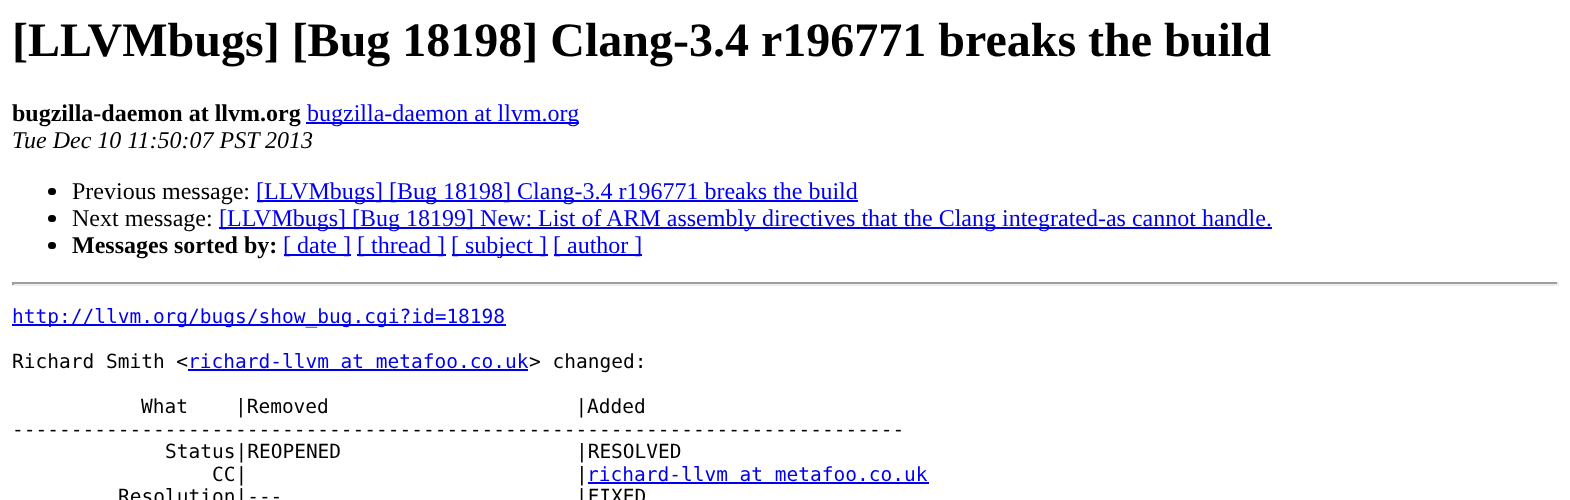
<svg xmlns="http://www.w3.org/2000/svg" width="1570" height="500">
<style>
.a{font:bold 48px Liberation Serif;fill:#000}
.b{font:bold 24px Liberation Serif;fill:#000}
.c{font:24px Liberation Serif;fill:#00e}
.d{font:italic 24px Liberation Serif;fill:#000}
.e{font:24px Liberation Serif;fill:#000}
.f{font:19.5px DejaVu Sans Mono;fill:#00e}
.g{font:19.5px DejaVu Sans Mono;fill:#000}
</style>
<rect width="100%" height="100%" fill="#fff"/>
<path fill="#00e" d="M306 122h273v2H306z"/>
<rect fill="#000" x="48" y="188" width="8" height="7" rx="3.5"/>
<path fill="#00e" d="M257 200h601v2H257z"/>
<rect fill="#000" x="48" y="215" width="8" height="7" rx="3.5"/>
<path fill="#00e" d="M219 227h1053v2H219z"/>
<rect fill="#000" x="48" y="242" width="8" height="7" rx="3.5"/>
<path fill="#00e" d="M284 254h67v2H284z"/>
<path fill="#00e" d="M357 254h89v2H357z"/>
<path fill="#00e" d="M452 254h96v2H452z"/>
<path fill="#00e" d="M554 254h88v2H554z"/>
<path fill="#9f9f9f" d="M12 282h1547v2H12z"/>
<path fill="#eee" d="M1557 282h2v3H1557z"/>
<path fill="#eee" d="M12 284h1547v2H12z"/>
<path fill="#9f9f9f" d="M12 282h2v3H12z"/>
<path fill="#00e" d="M12 324h494v2H12z"/>
<path fill="#00e" d="M188 369h340v2H188z"/>
<path fill="#00e" d="M588 482h341v2H588z"/>
<text class="a" x="12" y="56">[LLVMbugs] [Bug 18198] Clang-3.4 r196771 breaks the build</text>
<text class="b" x="12" y="121">bugzilla-daemon at llvm.org</text>
<text class="c" x="307" y="121">bugzilla-daemon at llvm.org</text>
<text class="d" x="12" y="148">Tue Dec 10 11:50:07 PST 2013</text>
<text class="e" x="72" y="199">Previous message:</text>
<text class="c" x="256" y="199">[LLVMbugs] [Bug 18198] Clang-3.4 r196771 breaks the build</text>
<text class="e" x="72" y="226">Next message:</text>
<text class="c" x="219" y="226">[LLVMbugs] [Bug 18199] New: List of ARM assembly directives that the Clang integrated-as cannot handle.</text>
<text class="b" x="72" y="253">Messages sorted by:</text>
<text class="c" x="283" y="253">[ date ]</text>
<text class="c" x="357" y="253">[ thread ]</text>
<text class="c" x="451" y="253">[ subject ]</text>
<text class="c" x="553" y="253">[ author ]</text>
<text class="f" x="12" y="323">http://llvm.org/bugs/show_bug.cgi?id=18198</text>
<text class="g" x="12" y="368">Richard Smith &lt;</text>
<text class="f" x="188" y="368">richard-llvm at metafoo.co.uk</text>
<text class="g" x="529" y="368">&gt; changed:</text>
<text class="g" xml:space="preserve" x="141" y="413">What    |Removed                     |Added</text>
<text class="g" x="12" y="436">----------------------------------------------------------------------------</text>
<text class="g" xml:space="preserve" x="165" y="458">Status|REOPENED                    |RESOLVED</text>
<text class="g" xml:space="preserve" x="212" y="481">CC|                            |</text>
<text class="f" x="587" y="481">richard-llvm at metafoo.co.uk</text>
<text class="g" xml:space="preserve" x="118" y="503">Resolution|---                         |FIXED</text>
</svg>
